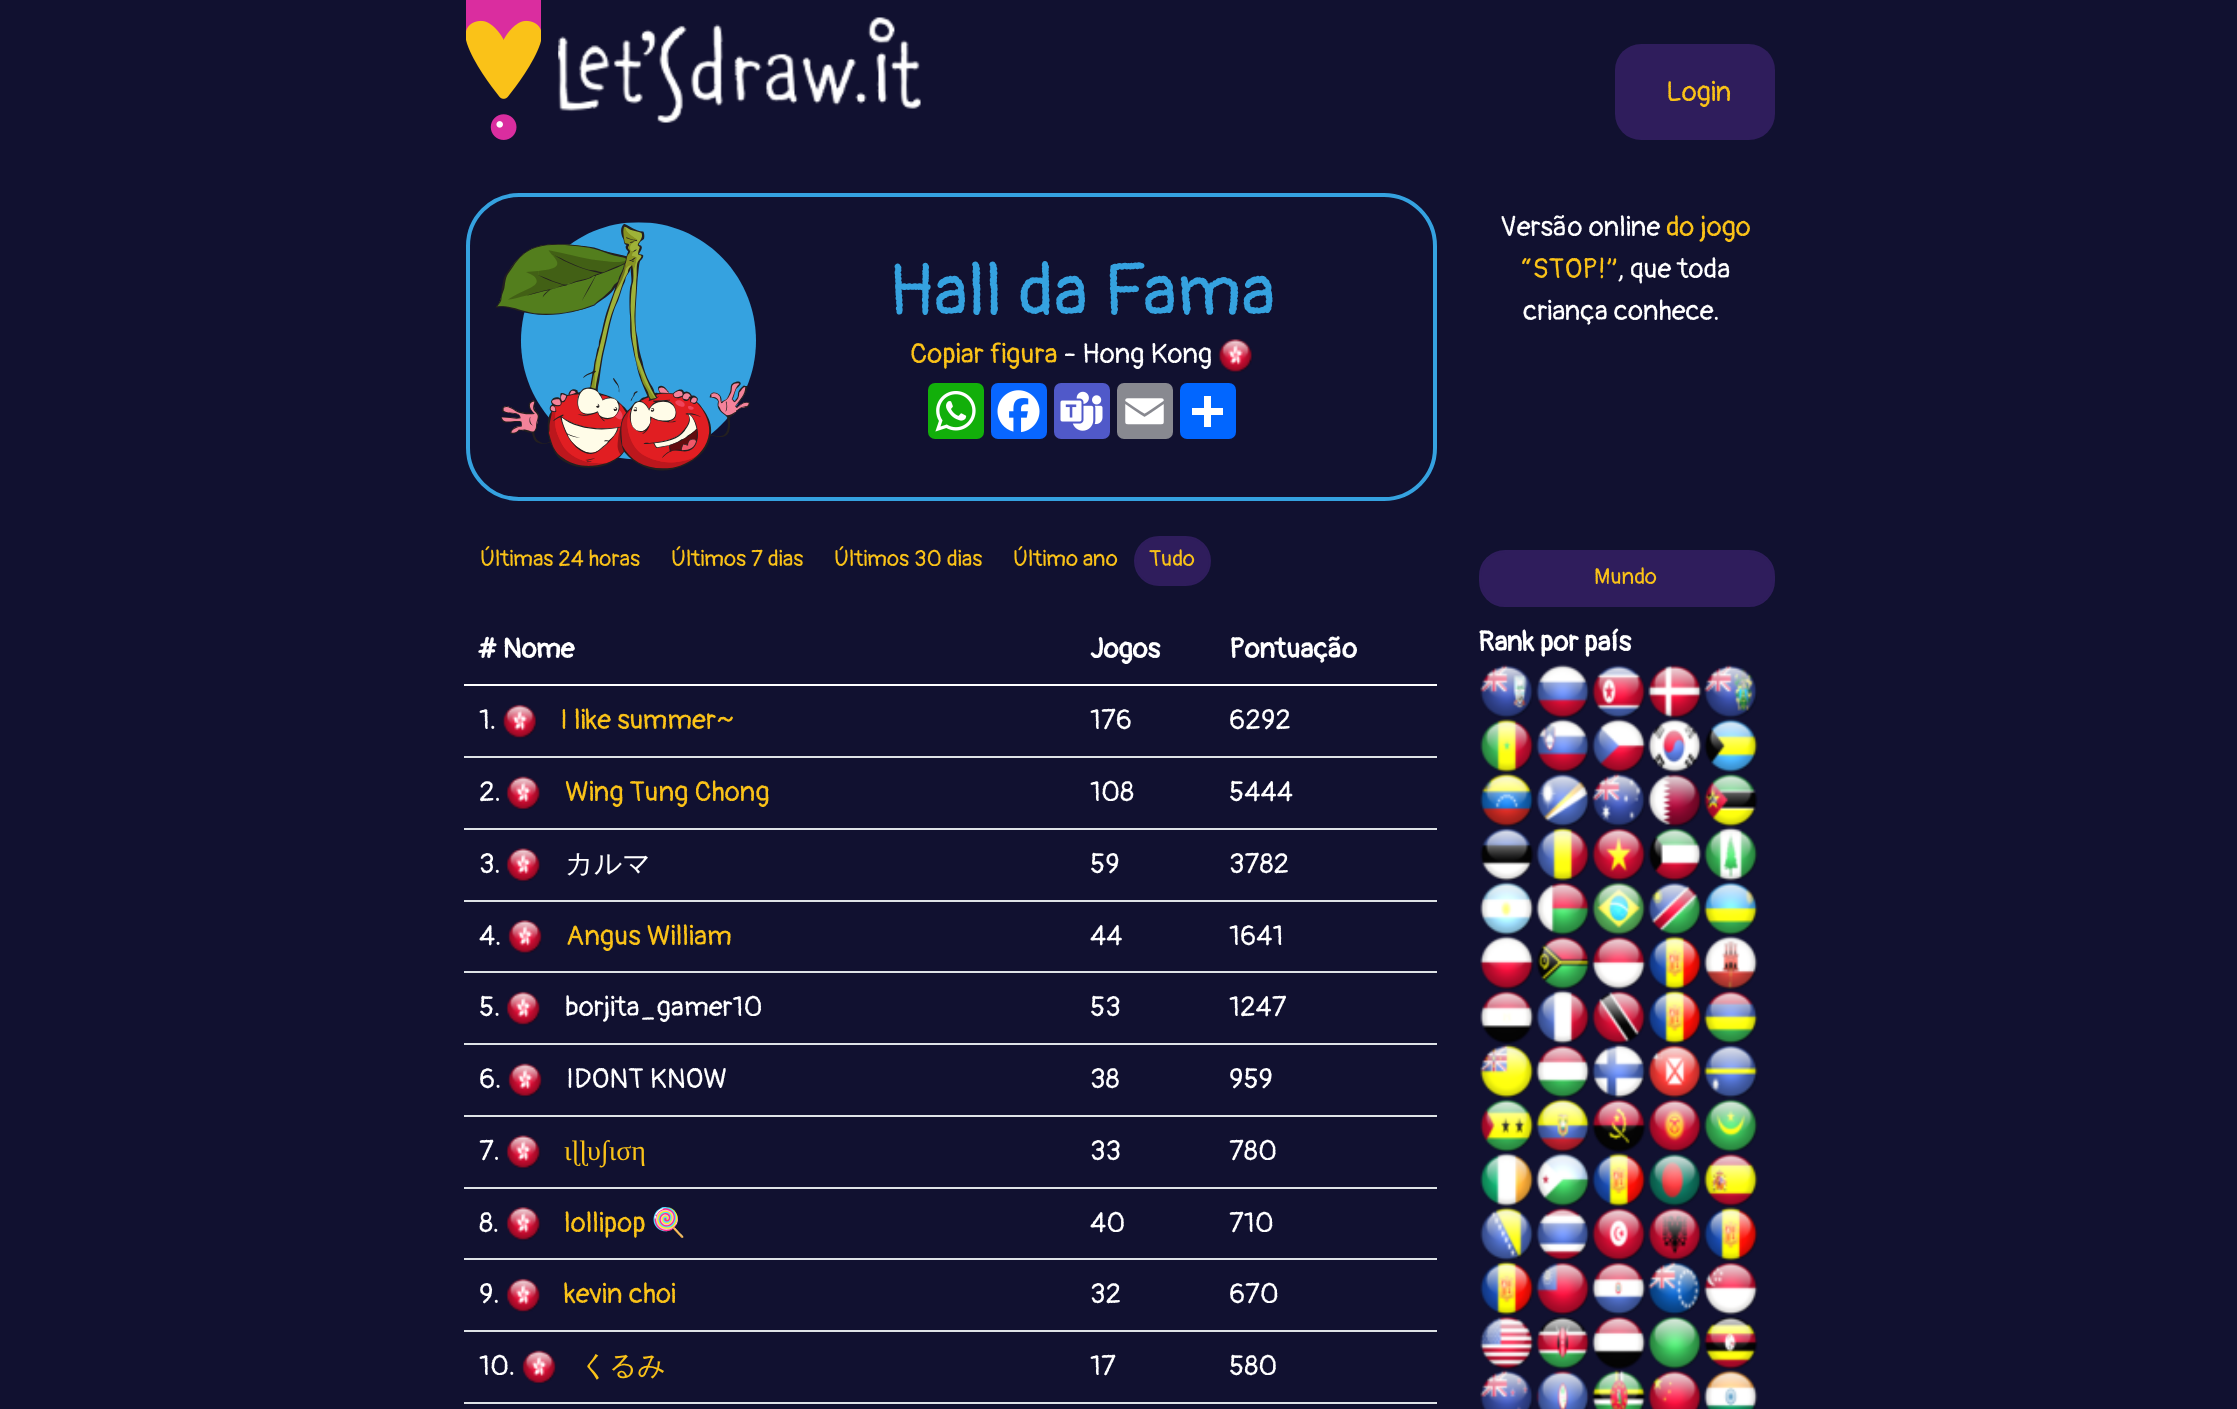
<svg xmlns="http://www.w3.org/2000/svg" width="2237" height="1409">
<style>
.a{font:28px Pangolin;fill:#fac218}
.b{font:72.75px Pangolin;fill:#35a2e0}
.c{font:28px Pangolin;fill:#fff}
.d{font:22.5px Pangolin;fill:#fac218}
.e{font:bold 28px Pangolin;fill:#fff}
.f{font:500 28px WenQuanYi Zen Hei;fill:#fff}
.g{font:28px Liberation Serif;fill:#fac218}
.h{font:28px Noto Color Emoji;fill:#fac218}
.i{font:500 28px WenQuanYi Zen Hei;fill:#fac218}
</style>
<rect width="100%" height="100%" fill="#111130"/>
<image href="1.png" x="466" y="0" width="75" height="140"/>
<image href="2.png" x="558" y="17" width="363" height="106"/>
<rect fill="#2f1d5c" x="1615" y="44" width="160" height="96" rx="26"/>
<rect fill="none" stroke="#35a2e0" stroke-width="4" x="468" y="195" width="967" height="304" rx="51"/>
<image href="3.png" x="495" y="222" width="261" height="249"/>
<image href="4.png" x="1218" y="338" width="35" height="35"/>
<rect fill="#12af0a" x="928" y="383" width="56" height="56" rx="7"/>
<image href="5.png" x="935" y="391" width="41" height="41"/>
<rect fill="#0866ff" x="991" y="383" width="56" height="56" rx="7"/>
<image href="6.png" x="997" y="390" width="43" height="43"/>
<rect fill="#5059c9" x="1054" y="383" width="56" height="56" rx="7"/>
<image href="7.png" x="1060" y="391" width="43" height="40"/>
<rect fill="#888990" x="1117" y="383" width="56" height="56" rx="7"/>
<image href="8.png" x="1125" y="398" width="39" height="27"/>
<rect fill="#0166ff" x="1180" y="383" width="56" height="56" rx="7"/>
<path fill="#fff" d="M1204 396h7v31H1204z"/>
<path fill="#fff" d="M1192 408h31v7H1192z"/>
<rect fill="#2f1d5c" stroke="#2f1d5c" stroke-width="2" x="1135" y="537" width="75" height="48" rx="24"/>
<path fill="#fff" d="M464 684h973v2H464z"/>
<image href="9.png" x="502" y="704" width="35" height="35"/>
<path fill="#dee2e6" d="M464 756h973v2H464z"/>
<image href="10.png" x="506" y="776" width="34" height="34"/>
<path fill="#dee2e6" d="M464 828h973v2H464z"/>
<image href="11.png" x="506" y="847" width="35" height="35"/>
<path fill="#dee2e6" d="M464 900h973v2H464z"/>
<image href="12.png" x="507" y="919" width="35" height="35"/>
<path fill="#dee2e6" d="M464 971h973v2H464z"/>
<image href="13.png" x="506" y="991" width="34" height="35"/>
<path fill="#dee2e6" d="M464 1043h973v2H464z"/>
<image href="14.png" x="507" y="1063" width="35" height="34"/>
<path fill="#dee2e6" d="M464 1115h973v2H464z"/>
<image href="11.png" x="506" y="1134" width="35" height="35"/>
<path fill="#dee2e6" d="M464 1187h973v2H464z"/>
<image href="15.png" x="506" y="1206" width="35" height="35"/>
<path fill="#dee2e6" d="M464 1258h973v2H464z"/>
<image href="13.png" x="506" y="1278" width="34" height="35"/>
<path fill="#dee2e6" d="M464 1330h973v2H464z"/>
<image href="14.png" x="521" y="1350" width="35" height="34"/>
<path fill="#dee2e6" d="M464 1402h973v2H464z"/>
<rect fill="#2f1d5c" stroke="#2f1d5c" stroke-width="2" x="1480" y="551" width="294" height="55" rx="25"/>
<image href="16.png" x="1480" y="664" width="53" height="54"/>
<image href="17.png" x="1536" y="664" width="53" height="54"/>
<image href="18.png" x="1592" y="664" width="54" height="54"/>
<image href="19.png" x="1648" y="664" width="54" height="54"/>
<image href="20.png" x="1704" y="664" width="53" height="54"/>
<image href="21.png" x="1480" y="719" width="54" height="54"/>
<image href="22.png" x="1536" y="719" width="53" height="54"/>
<image href="23.png" x="1592" y="719" width="54" height="54"/>
<image href="24.png" x="1648" y="719" width="54" height="54"/>
<image href="25.png" x="1704" y="719" width="54" height="53"/>
<image href="26.png" x="1480" y="773" width="53" height="54"/>
<image href="27.png" x="1536" y="773" width="53" height="53"/>
<image href="28.png" x="1592" y="773" width="53" height="53"/>
<image href="29.png" x="1648" y="773" width="54" height="54"/>
<image href="30.png" x="1704" y="773" width="54" height="54"/>
<image href="31.png" x="1480" y="827" width="54" height="54"/>
<image href="32.png" x="1536" y="827" width="54" height="54"/>
<image href="33.png" x="1592" y="827" width="54" height="54"/>
<image href="34.png" x="1648" y="827" width="54" height="54"/>
<image href="35.png" x="1704" y="827" width="54" height="54"/>
<image href="36.png" x="1480" y="881" width="54" height="54"/>
<image href="37.png" x="1536" y="881" width="54" height="54"/>
<image href="38.png" x="1592" y="881" width="54" height="54"/>
<image href="39.png" x="1648" y="881" width="54" height="54"/>
<image href="40.png" x="1704" y="881" width="54" height="54"/>
<image href="41.png" x="1480" y="936" width="54" height="54"/>
<image href="42.png" x="1536" y="936" width="54" height="54"/>
<image href="43.png" x="1592" y="936" width="54" height="54"/>
<image href="44.png" x="1648" y="936" width="54" height="54"/>
<image href="45.png" x="1704" y="936" width="54" height="54"/>
<image href="46.png" x="1480" y="990" width="54" height="54"/>
<image href="47.png" x="1536" y="990" width="54" height="54"/>
<image href="48.png" x="1592" y="990" width="54" height="54"/>
<image href="49.png" x="1648" y="990" width="54" height="54"/>
<image href="50.png" x="1704" y="990" width="54" height="54"/>
<image href="51.png" x="1480" y="1044" width="54" height="54"/>
<image href="52.png" x="1536" y="1044" width="54" height="54"/>
<image href="53.png" x="1592" y="1044" width="53" height="54"/>
<image href="54.png" x="1648" y="1044" width="54" height="54"/>
<image href="55.png" x="1704" y="1044" width="54" height="54"/>
<image href="56.png" x="1480" y="1098" width="54" height="54"/>
<image href="57.png" x="1536" y="1098" width="54" height="54"/>
<image href="58.png" x="1592" y="1098" width="54" height="54"/>
<image href="59.png" x="1648" y="1098" width="54" height="54"/>
<image href="60.png" x="1704" y="1098" width="54" height="54"/>
<image href="61.png" x="1480" y="1153" width="54" height="54"/>
<image href="62.png" x="1536" y="1153" width="54" height="54"/>
<image href="63.png" x="1592" y="1153" width="54" height="54"/>
<image href="64.png" x="1648" y="1153" width="53" height="54"/>
<image href="65.png" x="1704" y="1153" width="54" height="54"/>
<image href="66.png" x="1480" y="1207" width="53" height="53"/>
<image href="67.png" x="1536" y="1207" width="53" height="54"/>
<image href="68.png" x="1592" y="1207" width="54" height="54"/>
<image href="69.png" x="1648" y="1207" width="54" height="54"/>
<image href="49.png" x="1704" y="1207" width="54" height="54"/>
<image href="70.png" x="1480" y="1261" width="54" height="54"/>
<image href="71.png" x="1536" y="1261" width="54" height="54"/>
<image href="72.png" x="1592" y="1261" width="54" height="54"/>
<image href="73.png" x="1648" y="1261" width="53" height="54"/>
<image href="74.png" x="1704" y="1261" width="54" height="54"/>
<image href="75.png" x="1480" y="1315" width="54" height="54"/>
<image href="76.png" x="1536" y="1316" width="54" height="53"/>
<image href="77.png" x="1592" y="1315" width="54" height="54"/>
<image href="78.png" x="1648" y="1315" width="54" height="54"/>
<image href="79.png" x="1704" y="1316" width="54" height="53"/>
<image href="80.png" x="1480" y="1370" width="53" height="39"/>
<image href="81.png" x="1536" y="1370" width="53" height="39"/>
<image href="82.png" x="1592" y="1370" width="54" height="39"/>
<image href="83.png" x="1648" y="1370" width="54" height="39"/>
<image href="84.png" x="1704" y="1370" width="54" height="39"/>
<text class="a" x="1666" y="101">Login</text>
<text class="b" x="888" y="315">Hall da Fama</text>
<text class="a" x="910" y="363">Copiar figura</text>
<text class="c" x="1064" y="363">- Hong Kong</text>
<text class="c" x="1500" y="236">Versão online</text>
<text class="a" x="1666" y="236">do jogo</text>
<text class="a" x="1521" y="278">“STOP!”</text>
<text class="c" x="1617" y="278">, que toda</text>
<text class="c" x="1523" y="320">criança conhece.</text>
<text class="d" x="480" y="566">Últimas 24 horas</text>
<text class="d" x="671" y="566">Últimos 7 dias</text>
<text class="d" x="834" y="566">Últimos 30 dias</text>
<text class="d" x="1013" y="566">Último ano</text>
<text class="d" x="1149" y="566">Tudo</text>
<text class="e" x="479" y="658"># Nome</text>
<text class="e" x="1090" y="658">Jogos</text>
<text class="e" x="1229" y="658">Pontuação</text>
<text class="c" x="479" y="729">1.</text>
<text class="a" x="560" y="729">I like summer~</text>
<text class="c" x="1090" y="729">176</text>
<text class="c" x="1229" y="729">6292</text>
<text class="c" x="479" y="801">2.</text>
<text class="a" x="565" y="801">Wing Tung Chong</text>
<text class="c" x="1090" y="801">108</text>
<text class="c" x="1229" y="801">5444</text>
<text class="c" x="479" y="873">3.</text>
<text class="f" x="565" y="873">カルマ</text>
<text class="c" x="1090" y="873">59</text>
<text class="c" x="1229" y="873">3782</text>
<text class="c" x="479" y="945">4.</text>
<text class="a" x="566" y="945">Angus William</text>
<text class="c" x="1090" y="945">44</text>
<text class="c" x="1229" y="945">1641</text>
<text class="c" x="479" y="1016">5.</text>
<text class="c" x="565" y="1016">borjita_gamer10</text>
<text class="c" x="1090" y="1016">53</text>
<text class="c" x="1229" y="1016">1247</text>
<text class="c" x="479" y="1088">6.</text>
<text class="c" x="566" y="1088">IDONT KNOW</text>
<text class="c" x="1090" y="1088">38</text>
<text class="c" x="1229" y="1088">959</text>
<text class="c" x="479" y="1160">7.</text>
<text class="g" x="564" y="1160">ιɭɭυ∫ιση</text>
<text class="c" x="1090" y="1160">33</text>
<text class="c" x="1229" y="1160">780</text>
<text class="c" x="479" y="1232">8.</text>
<text class="a" x="564" y="1232">lollipop</text>
<text class="h" x="651" y="1232">🍭</text>
<text class="c" x="1090" y="1232">40</text>
<text class="c" x="1229" y="1232">710</text>
<text class="c" x="479" y="1303">9.</text>
<text class="a" x="564" y="1303">kevin choi</text>
<text class="c" x="1090" y="1303">32</text>
<text class="c" x="1229" y="1303">670</text>
<text class="c" x="479" y="1375">10.</text>
<text class="i" x="580" y="1375">くるみ</text>
<text class="c" x="1090" y="1375">17</text>
<text class="c" x="1229" y="1375">580</text>
<text class="d" x="1594" y="584">Mundo</text>
<text class="e" x="1478" y="651">Rank por país</text>
</svg>
